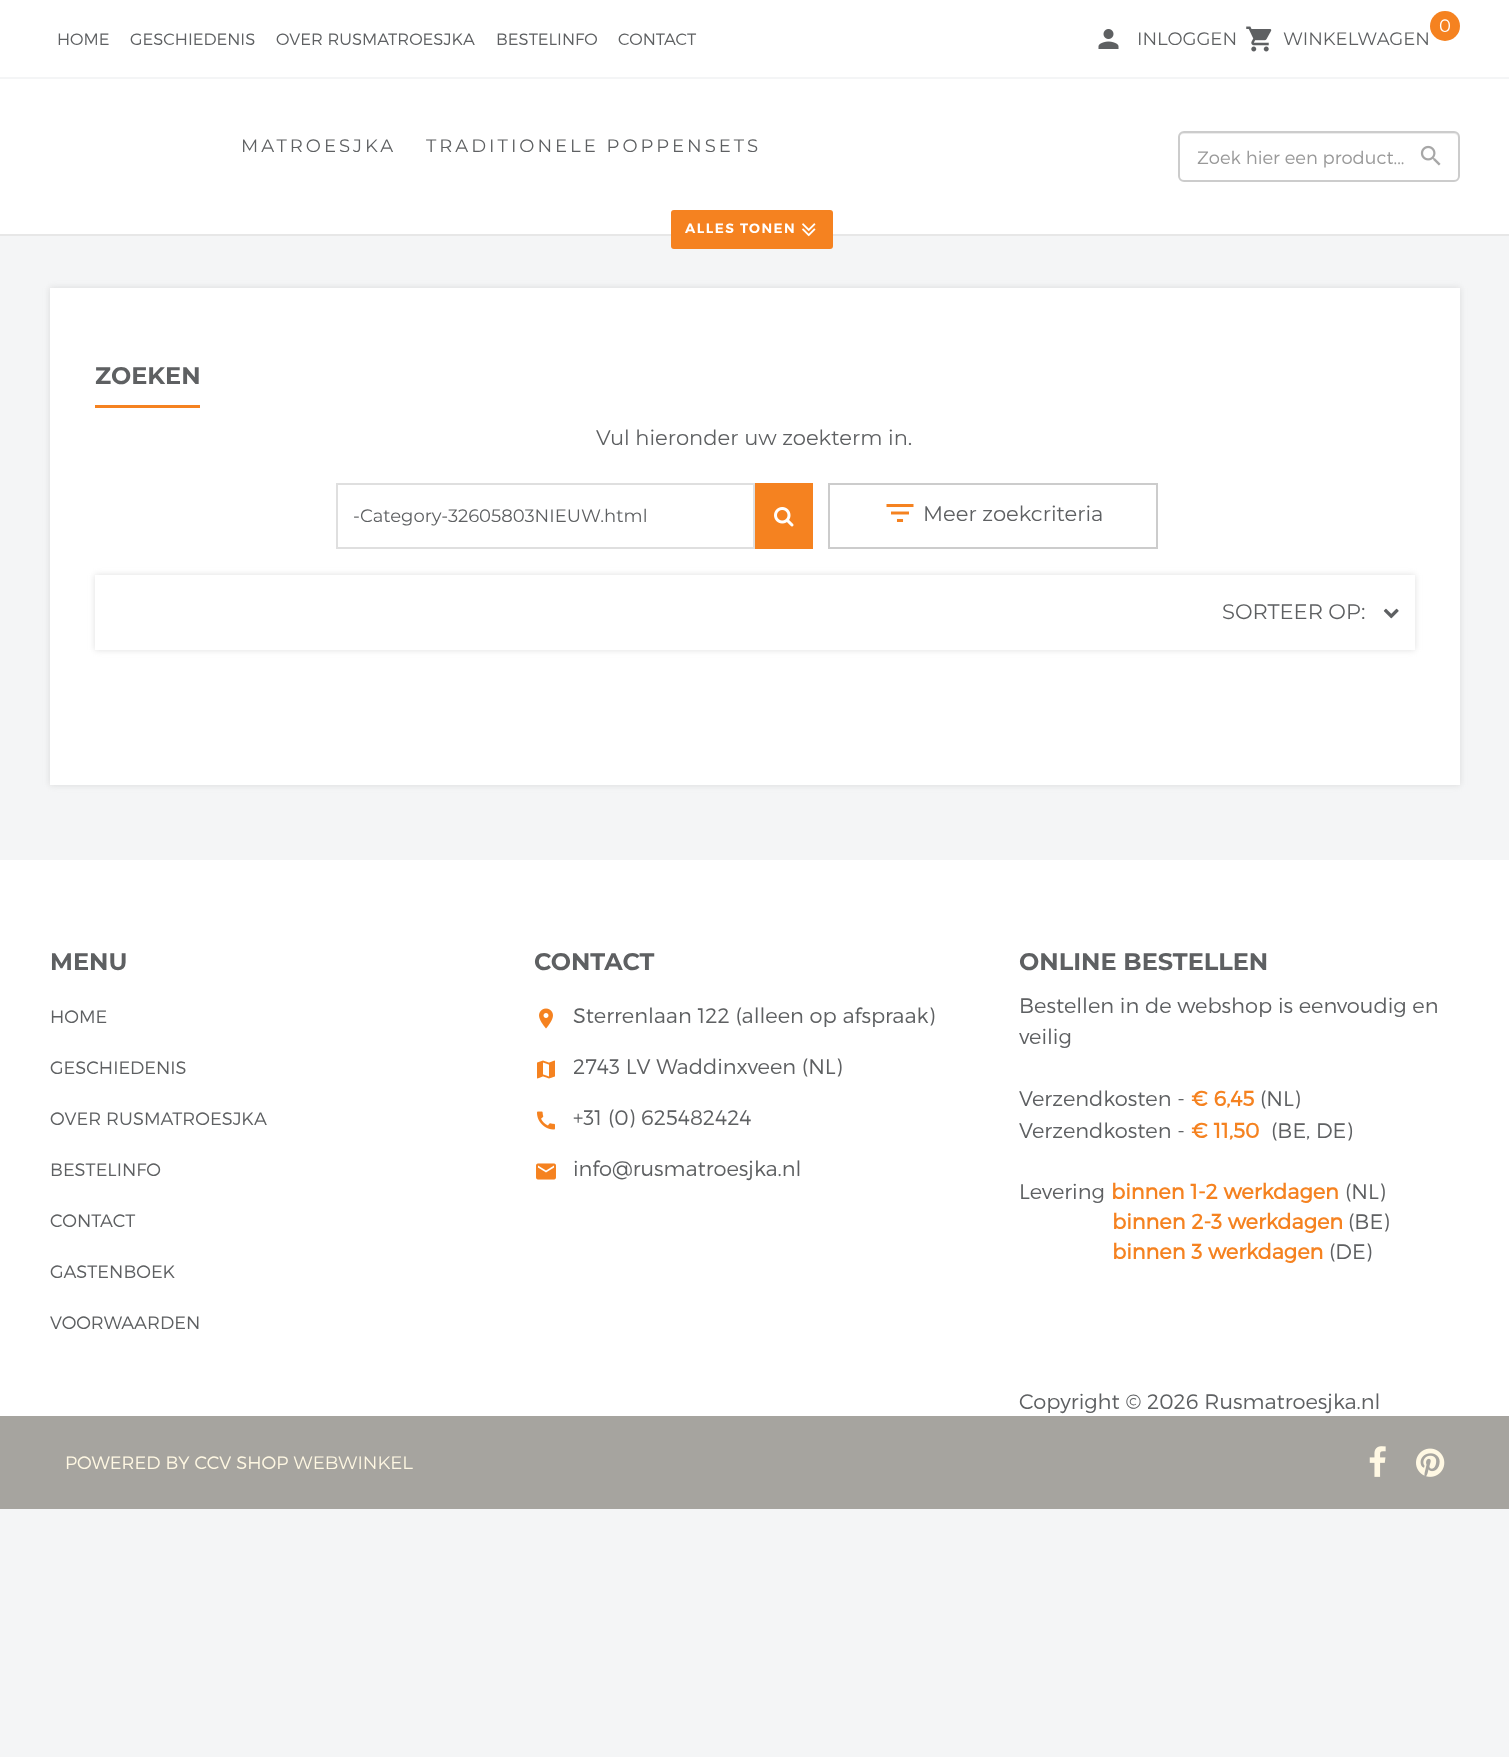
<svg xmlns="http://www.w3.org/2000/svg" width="1509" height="1757">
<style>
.a{font:300 16.5px Montserrat;fill:#5e6062}
.b{font:18px Montserrat;fill:#5e6062}
.c{font:18px Montserrat;fill:#fff}
.d{font:18px Montserrat;letter-spacing:3px;fill:#5e6062}
.e{font:600 13.5px Montserrat;letter-spacing:1.5px;fill:#fff}
.f{font:300 18px Montserrat;fill:#999}
.g{font:bold 24px Montserrat;fill:#5e6062}
.h{font:21px Montserrat;fill:#5e6062}
.i{font:300 18px Montserrat;fill:#5e6062}
.j{font:300 21px Montserrat;fill:#5e6062}
.k{font:bold 21px 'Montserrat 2';fill:#f58220}
.l{font:300 18px Montserrat;fill:#fff8e3}
.m{font:18px Montserrat;fill:#fff8e3}
</style>
<rect width="100%" height="100%" fill="#f4f5f6"/>
<path fill="#fff" d="M0 0h1509v234H0z"/>
<path fill="#e7e7e7" d="M0 234h1509v2H0z"/>
<image href="1.png" x="1098" y="29" width="21" height="20"/>
<image href="2.png" x="1246" y="26" width="26" height="26"/>
<circle fill="#f58220" cx="1445" cy="26" r="15"/>
<path fill="#f4f5f6" d="M0 77h1509v2H0z"/>
<rect fill="#f58220" x="671" y="210" width="162" height="39" rx="3"/>
<image href="3.png" x="802" y="223" width="14" height="14"/>
<path fill="#ececec" d="M1184 134h270c2 0 4 2 4 4v-1c0-3-2-5-5-5h-269c-3 0-5 2-5 5v1c0-2 2-4 5-4z"/>
<rect fill="none" stroke="#ccc" stroke-width="2" x="1179" y="132" width="280" height="49" rx="5"/>
<image href="4.png" x="1420" y="145" width="21" height="21"/>
<path fill="#bdbdbd80" filter="blur(3px)" d="M50 288h1410v497H50z"/>
<path fill="#fff" d="M50 288h1410v497H50z"/>
<path fill="#f58220" d="M95 405h105v3H95z"/>
<path fill="none" stroke="#dfdfdf" stroke-width="2" d="M337 484h417v64H337z"/>
<path fill="#f58220" d="M755 483h58v66H755z"/>
<image href="5.png" x="774" y="507" width="20" height="20"/>
<path fill="none" stroke="#ccc" stroke-width="2" d="M829 484h328v64H829z"/>
<image href="6.png" x="886" y="504" width="28" height="18"/>
<path fill="#bdbdbd80" filter="blur(3px)" d="M95 575h1320v75H95z"/>
<path fill="#fff" d="M95 575h1320v75H95z"/>
<image href="7.png" x="1383" y="608" width="16" height="11"/>
<path fill="#fff" d="M0 860h1509v556H0z"/>
<image href="8.png" x="539" y="1008" width="14" height="21"/>
<image href="9.png" x="537" y="1060" width="18" height="19"/>
<image href="10.png" x="537" y="1111" width="18" height="19"/>
<image href="11.png" x="536" y="1163" width="20" height="17"/>
<path fill="#a6a49f" d="M0 1416h1509v93H0z"/>
<image href="12.png" x="1369" y="1446" width="17" height="31"/>
<image href="13.png" x="1416" y="1448" width="29" height="29"/>
<text class="a" x="57" y="45">HOME</text>
<text class="a" x="130" y="45">GESCHIEDENIS</text>
<text class="a" x="276" y="45">OVER RUSMATROESJKA</text>
<text class="a" x="496" y="45">BESTELINFO</text>
<text class="a" x="618" y="45">CONTACT</text>
<text class="b" x="1137" y="45">INLOGGEN</text>
<text class="b" x="1283" y="45">WINKELWAGEN</text>
<text class="c" x="1439" y="32">0</text>
<text class="d" x="241" y="152">MATROESJKA</text>
<text class="d" x="426" y="152">TRADITIONELE POPPENSETS</text>
<text class="e" x="685" y="233">ALLES TONEN</text>
<text class="f" x="1197" y="164">Zoek hier een product...</text>
<text class="g" x="95" y="384">ZOEKEN</text>
<text class="h" x="596" y="445">Vul hieronder uw zoekterm in.</text>
<text class="b" x="353" y="522">-Category-32605803NIEUW.html</text>
<text class="h" x="923" y="521">Meer zoekcriteria</text>
<text class="h" x="1222" y="619">SORTEER OP:</text>
<text class="g" x="50" y="970">MENU</text>
<text class="i" x="50" y="1023">HOME</text>
<text class="i" x="50" y="1074">GESCHIEDENIS</text>
<text class="i" x="50" y="1125">OVER RUSMATROESJKA</text>
<text class="i" x="50" y="1176">BESTELINFO</text>
<text class="i" x="50" y="1227">CONTACT</text>
<text class="i" x="50" y="1278">GASTENBOEK</text>
<text class="i" x="50" y="1329">VOORWAARDEN</text>
<text class="g" x="534" y="970">CONTACT</text>
<text class="j" x="573" y="1023">Sterrenlaan 122 (alleen op afspraak)</text>
<text class="j" x="573" y="1074">2743 LV Waddinxveen (NL)</text>
<text class="j" x="573" y="1125">+31 (0) 625482424</text>
<text class="j" x="573" y="1176">info@rusmatroesjka.nl</text>
<text class="g" x="1019" y="970">ONLINE BESTELLEN</text>
<text class="j" x="1019" y="1013">Bestellen in de webshop is eenvoudig en</text>
<text class="j" x="1019" y="1044">veilig</text>
<text class="j" x="1019" y="1106">Verzendkosten -</text>
<text class="k" x="1191" y="1106">€ 6,45</text>
<text class="j" x="1260" y="1106">(NL)</text>
<text class="j" x="1019" y="1138">Verzendkosten -</text>
<text class="k" x="1191" y="1138">€ 11,50</text>
<text class="j" x="1271" y="1138">(BE, DE)</text>
<text class="j" x="1019" y="1199">Levering</text>
<text class="k" x="1111" y="1199">binnen 1-2 werkdagen</text>
<text class="j" x="1345" y="1199">(NL)</text>
<text class="k" x="1112" y="1229">binnen 2-3 werkdagen</text>
<text class="j" x="1348" y="1229">(BE)</text>
<text class="k" x="1112" y="1259">binnen 3 werkdagen</text>
<text class="j" x="1329" y="1259">(DE)</text>
<text class="j" x="1019" y="1409">Copyright © 2026 Rusmatroesjka.nl</text>
<text class="l" x="65" y="1469">POWERED BY CCV SHOP</text>
<text class="m" x="293" y="1469">WEBWINKEL</text>
</svg>
